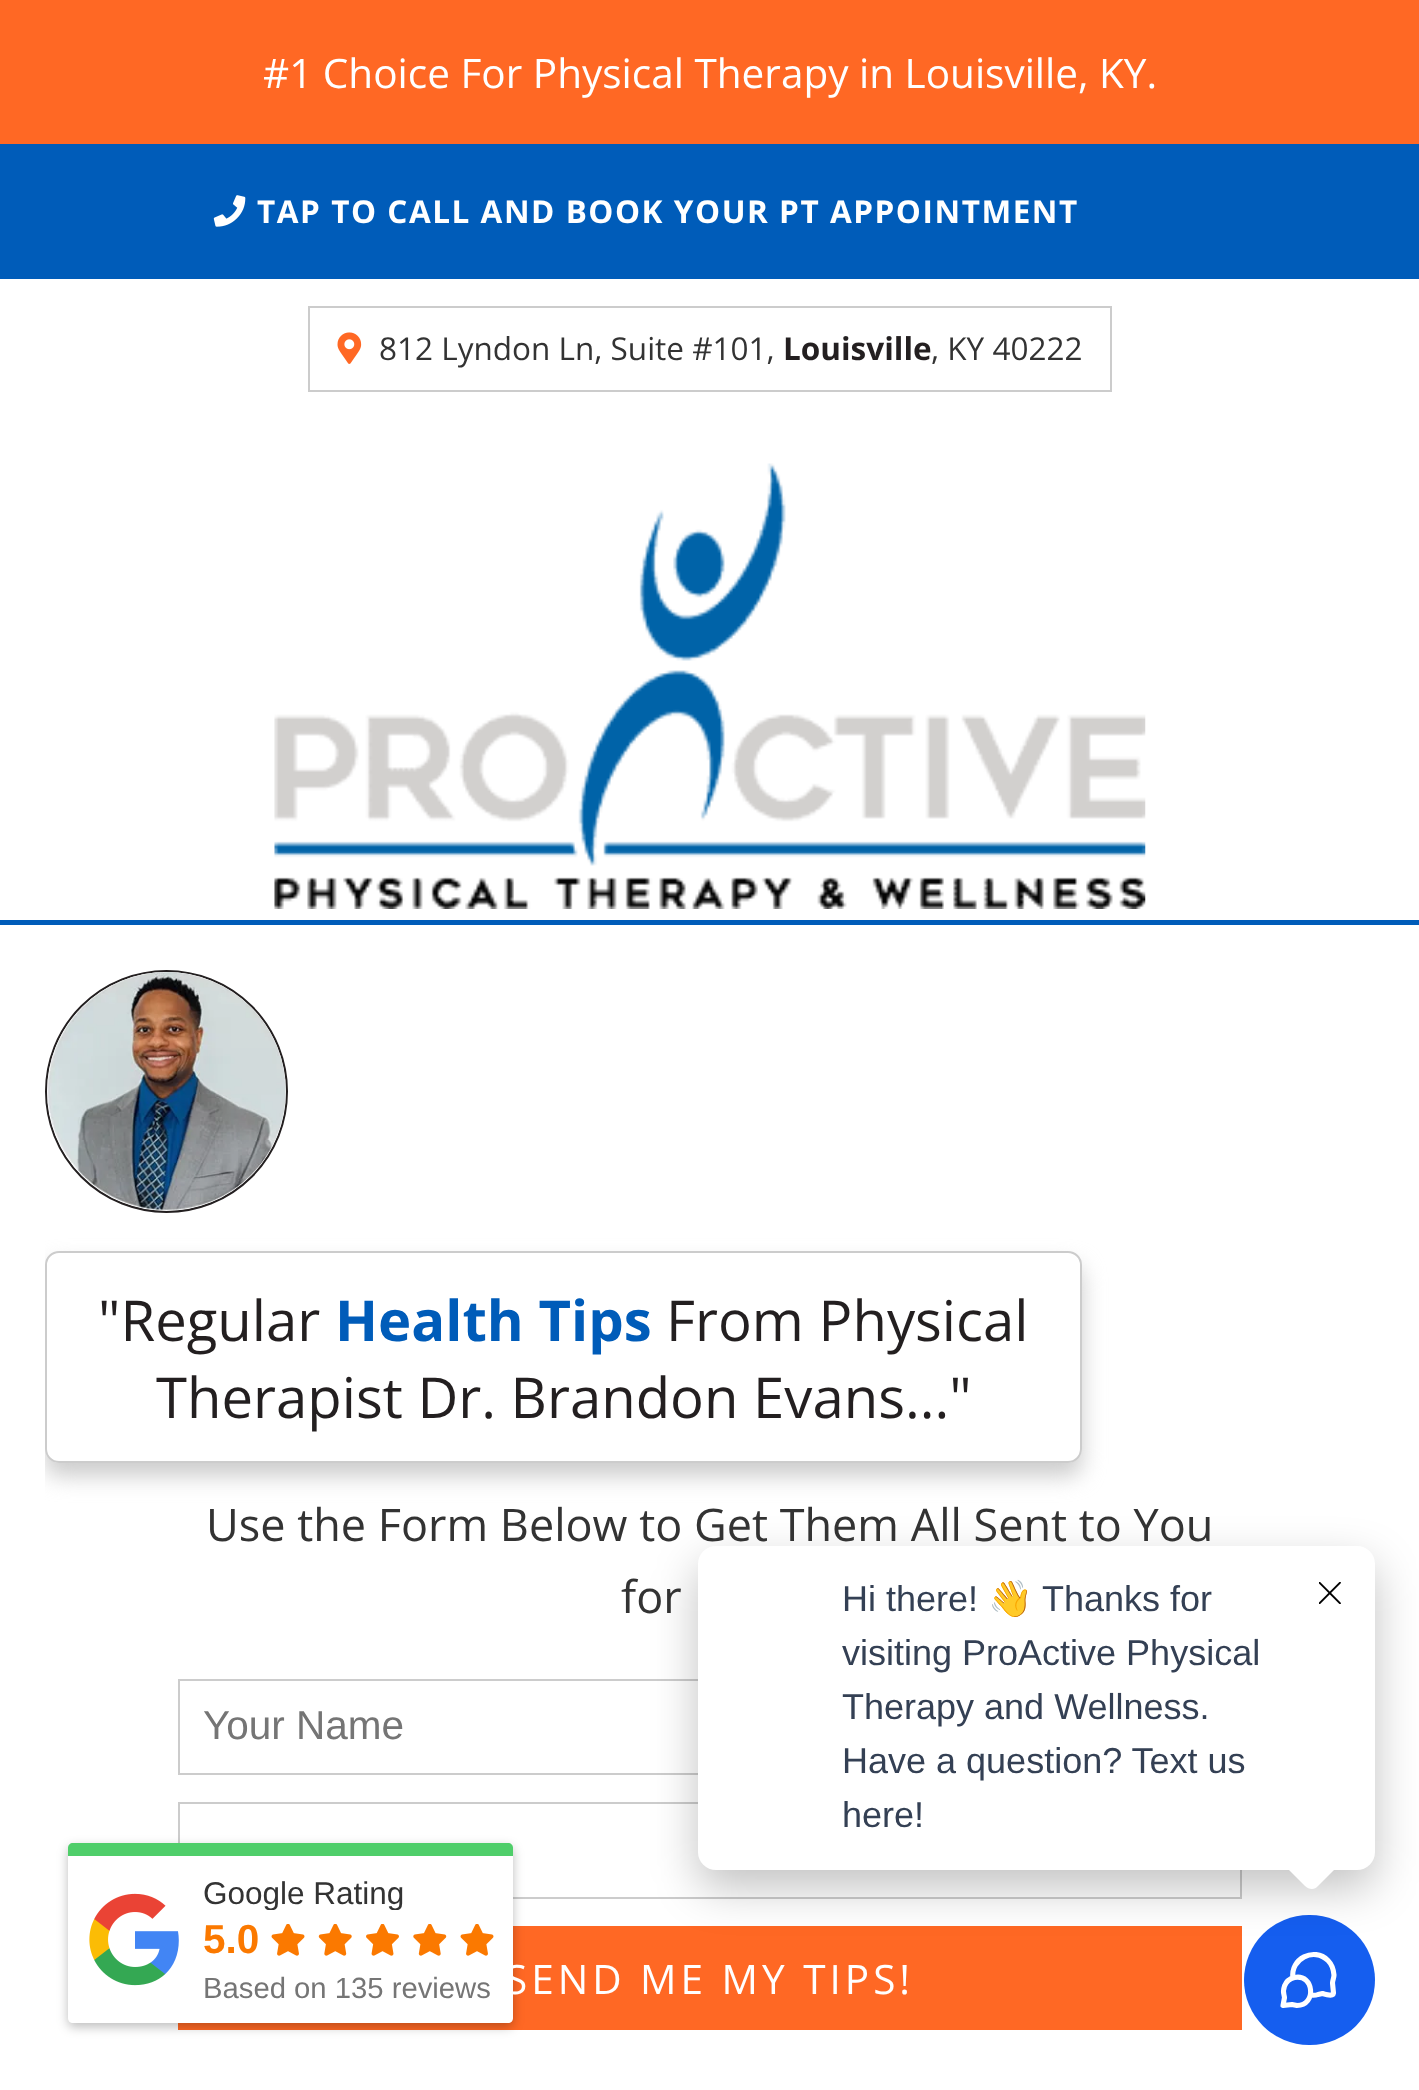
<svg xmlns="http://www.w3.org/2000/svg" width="1419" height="2090">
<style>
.a{font:40.5px Open Sans;fill:#fff}
.b{font:bold 31.5px Open Sans;letter-spacing:1.55px;fill:#fff}
.c{font:31.5px Open Sans;fill:#333}
.d{font:bold 31.5px Open Sans;fill:#231f20}
.e{font:56.25px Open Sans;fill:#231f20}
.f{font:bold 56.25px Open Sans;fill:#005cb9}
.g{font:45px Open Sans;fill:#333}
.h{font:40.5px Liberation Sans;fill:#757575}
.i{font:40.5px Open Sans;letter-spacing:4px;fill:#fff}
.j{font:36px Liberation Sans;fill:#344054}
.k{font:36px Noto Color Emoji;fill:#344054}
.l{font:31.5px Liberation Sans;fill:#333}
.m{font:bold 40.5px Liberation Sans;fill:#fb7900}
.n{font:29.25px Liberation Sans;fill:#757575}
</style>
<defs>
<clipPath id="clip1"><path d="M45 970h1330v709H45z"/></clipPath>
<clipPath id="clip2"><path d="M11 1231h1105v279h-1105zm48 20h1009c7.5 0 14 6.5 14 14v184c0 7.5-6.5 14-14 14h-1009c-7.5 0-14-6.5-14-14v-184c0-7.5 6.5-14 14-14z" clip-rule="evenodd"/></clipPath>
<clipPath id="clip3"><path d="M203 1874h292v36H203z"/></clipPath>
</defs>
<rect width="100%" height="100%" fill="#fff"/>
<path fill="#ff6824" d="M0 0h1419v144H0z"/>
<path fill="#005cb9" d="M0 920h1419v5H0z"/>
<path fill="#005cb9" d="M0 144h1419v135H0z"/>
<image href="1.png" x="213" y="195" width="33" height="32"/>
<path fill="none" stroke="#ccc" stroke-width="2" d="M309 307h802v84H309z"/>
<image href="2.png" x="337" y="332" width="25" height="32"/>
<image href="3.png" x="274" y="463" width="872" height="446"/>
<circle fill="none" stroke="#231f20" stroke-width="2" cx="166.5" cy="1091.5" r="120.5"/>
<image href="4.png" x="47" y="972" width="239" height="239"/>
<g clip-path="url(#clip1)">
<g clip-path="url(#clip2)">
<rect fill="#ccc" filter="blur(11px)" x="45" y="1265" width="1037" height="211" rx="14"/>
</g>
</g>
<rect fill="none" stroke="#ccc" stroke-width="2" x="46" y="1252" width="1035" height="210" rx="13"/>
<path fill="none" stroke="#ccc" stroke-width="2" d="M179 1680h1062v94H179z"/>
<path fill="none" stroke="#ccc" stroke-width="2" d="M179 1803h1062v95H179z"/>
<path fill="#ff6824" d="M178 1926h1064v104H178z"/>
<rect fill="#155eef" x="1244" y="1915" width="131" height="130" rx="65"/>
<path fill="none" stroke="#fff" stroke-width="5.1" stroke-linecap="round" stroke-linejoin="round" d="M1293 1978c-3-19 21-31.5 35-17.5c4 4 5.5 9 6 14.5c0 3-1.5 5.5-1.5 8l1 10l-.5 1.5c-1.5 1.5-9-.5-10.5-1l-4.5 1c-2.5 1-5 1-7.5 .5m-13.5 10.5c20 0 17-32-2.5-28c-4.5 1-8.5 4.5-10 8.5c-1 3-1.5 6-.5 9l.5 2.5l-1.5 8l9-1z"/>
<rect fill="#0000003d" filter="blur(22.5px)" x="698" y="1564" width="677" height="324" rx="18"/>
<rect fill="#fff" x="698" y="1546" width="677" height="324" rx="18"/>
<path fill="#fff" d="M1318 1835l19 19c4 4 4 10 0 13l-19 19c-3 4-9 4-13 0l-19-19c-3-3-3-9 0-13l19-19c4-3 10-3 13 0z"/>
<image href="5.png" x="1319" y="1582" width="22" height="22"/>
<rect fill="#00000042" filter="blur(5.5px)" x="68" y="1847" width="445" height="180" rx="5"/>
<path fill="#4fce6a" d="M73 1843h435c3 0 5 2 5 5v8h-445v-8c0-3 2-5 5-5z"/>
<path fill="#fff" d="M68 1856h445v162c0 3-2 5-5 5h-435c-3 0-5-2-5-5z"/>
<image href="6.png" x="89" y="1893" width="90" height="93"/>
<image href="7.png" x="271" y="1924" width="34" height="32"/>
<image href="8.png" x="318" y="1924" width="34" height="32"/>
<image href="9.png" x="366" y="1924" width="33" height="32"/>
<image href="10.png" x="413" y="1924" width="34" height="32"/>
<image href="7.png" x="460" y="1924" width="34" height="32"/>
<text class="a" x="263" y="88">#1 Choice For Physical Therapy in Louisville, KY.</text>
<text class="b" x="257" y="223">TAP TO CALL AND BOOK YOUR PT APPOINTMENT</text>
<text class="c" x="379" y="360">812 Lyndon Ln, Suite #101,</text>
<text class="d" x="783" y="360">Louisville</text>
<text class="c" x="931" y="360">, KY 40222</text>
<text class="e" x="98" y="1341">"Regular</text>
<text class="f" x="335" y="1341">Health Tips</text>
<text class="e" x="666" y="1341">From Physical</text>
<text class="e" x="156" y="1418">Therapist Dr. Brandon Evans..."</text>
<text class="g" x="206" y="1541">Use the Form Below to Get Them All Sent to You</text>
<text class="g" x="621" y="1613">for</text>
<text class="h" x="203" y="1739">Your Name</text>
<text class="i" x="505" y="1994">SEND ME MY TIPS!</text>
<text class="j" x="842" y="1611">Hi there!</text>
<text class="k" x="988" y="1611">👋</text>
<text class="j" x="1042" y="1611">Thanks for</text>
<text class="j" x="842" y="1665">visiting ProActive Physical</text>
<text class="j" x="842" y="1719">Therapy and Wellness.</text>
<text class="j" x="842" y="1773">Have a question? Text us</text>
<text class="j" x="842" y="1827">here!</text>
<g clip-path="url(#clip3)">
<text class="l" x="203" y="1904">Google Rating</text>
</g>
<text class="m" x="203" y="1953">5.0</text>
<text class="n" x="203" y="1998">Based on 135 reviews</text>
</svg>
